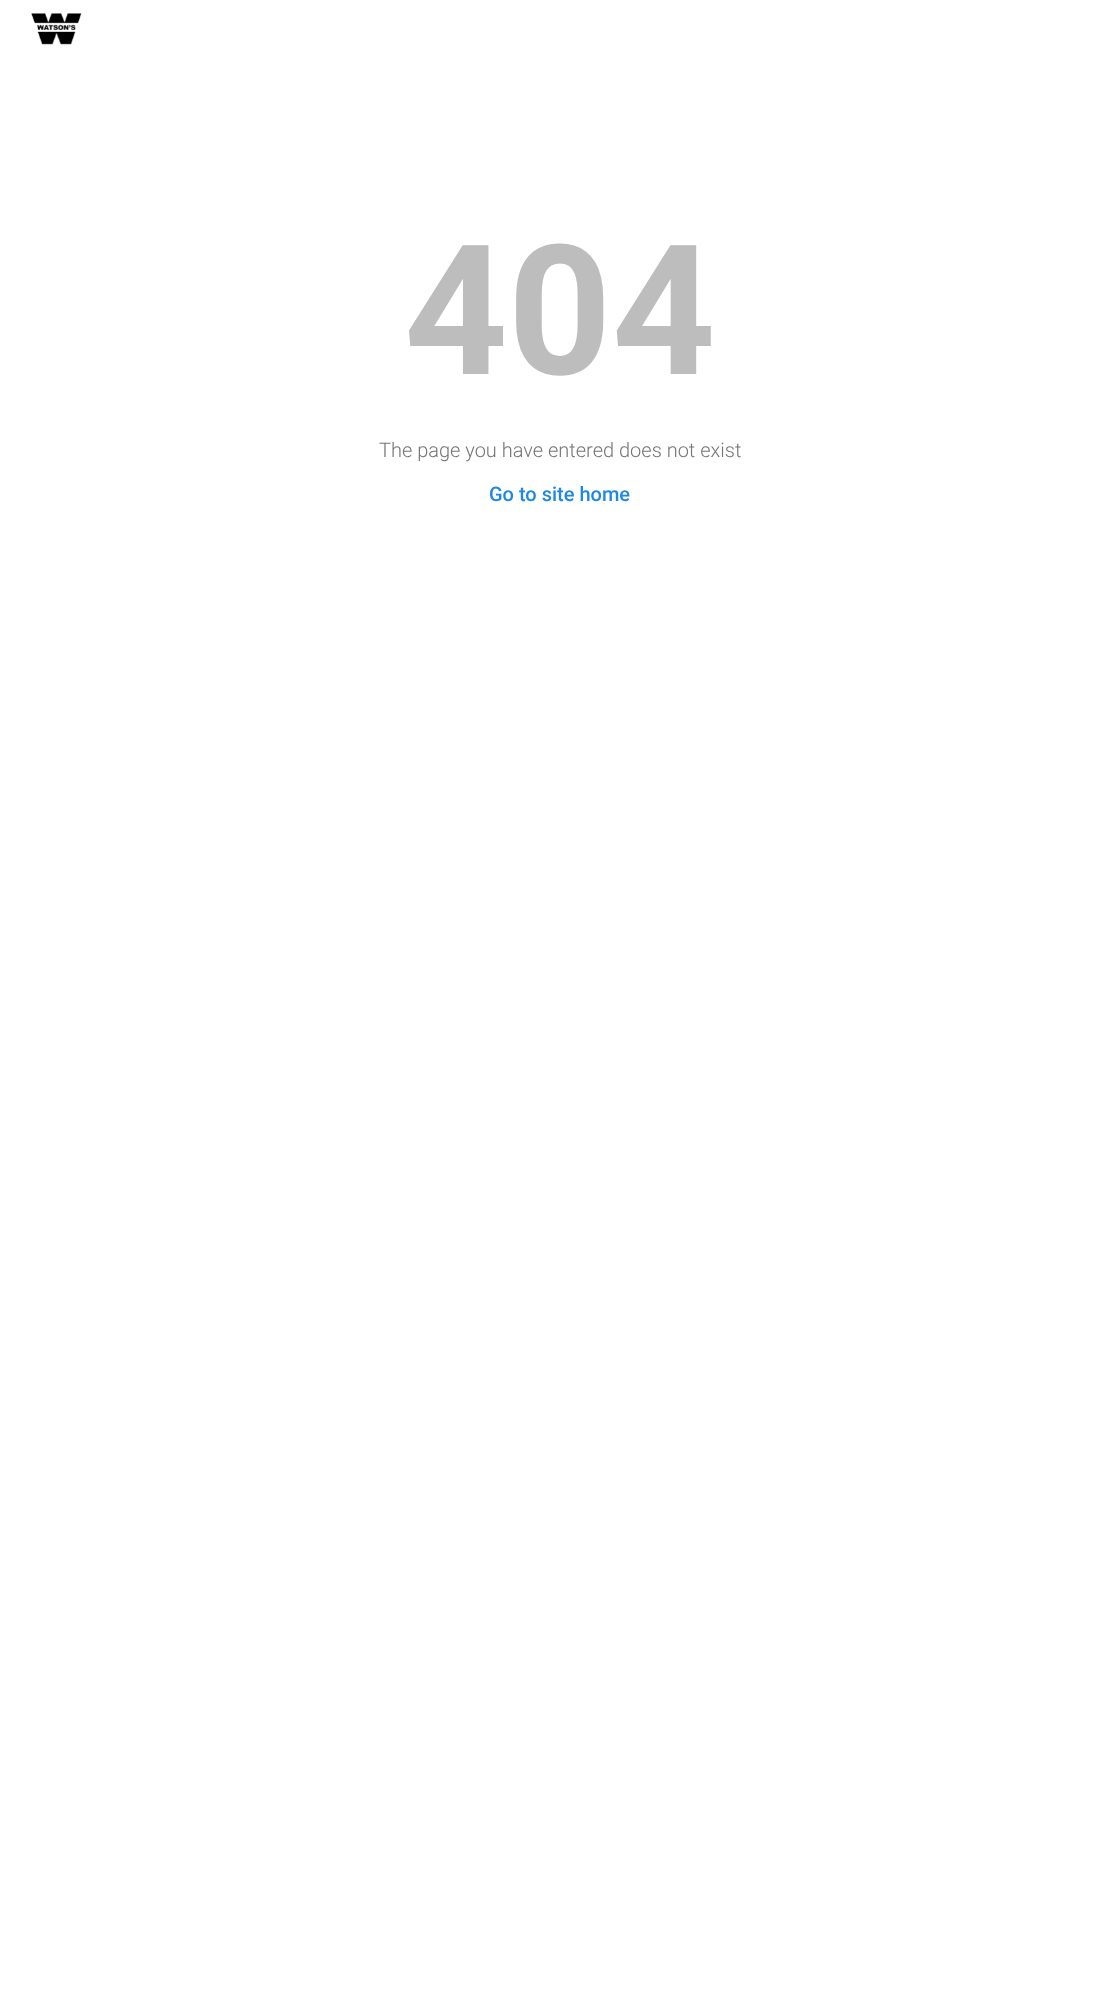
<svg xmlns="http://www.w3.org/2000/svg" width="1120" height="2008">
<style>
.a{font:bold 181px Roboto;fill:#bdbdbd}
.b{font:300 20px Roboto;fill:#757575}
.c{font:500 20px Roboto;fill:#1e88e5}
</style>
<rect width="100%" height="100%" fill="#fff"/>
<image href="1.png" x="31" y="13" width="51" height="32"/>
<text class="a" x="404" y="374">404</text>
<text class="b" x="379" y="457">The page you have entered does not exist</text>
<text class="c" x="489" y="501">Go to site home</text>
</svg>
